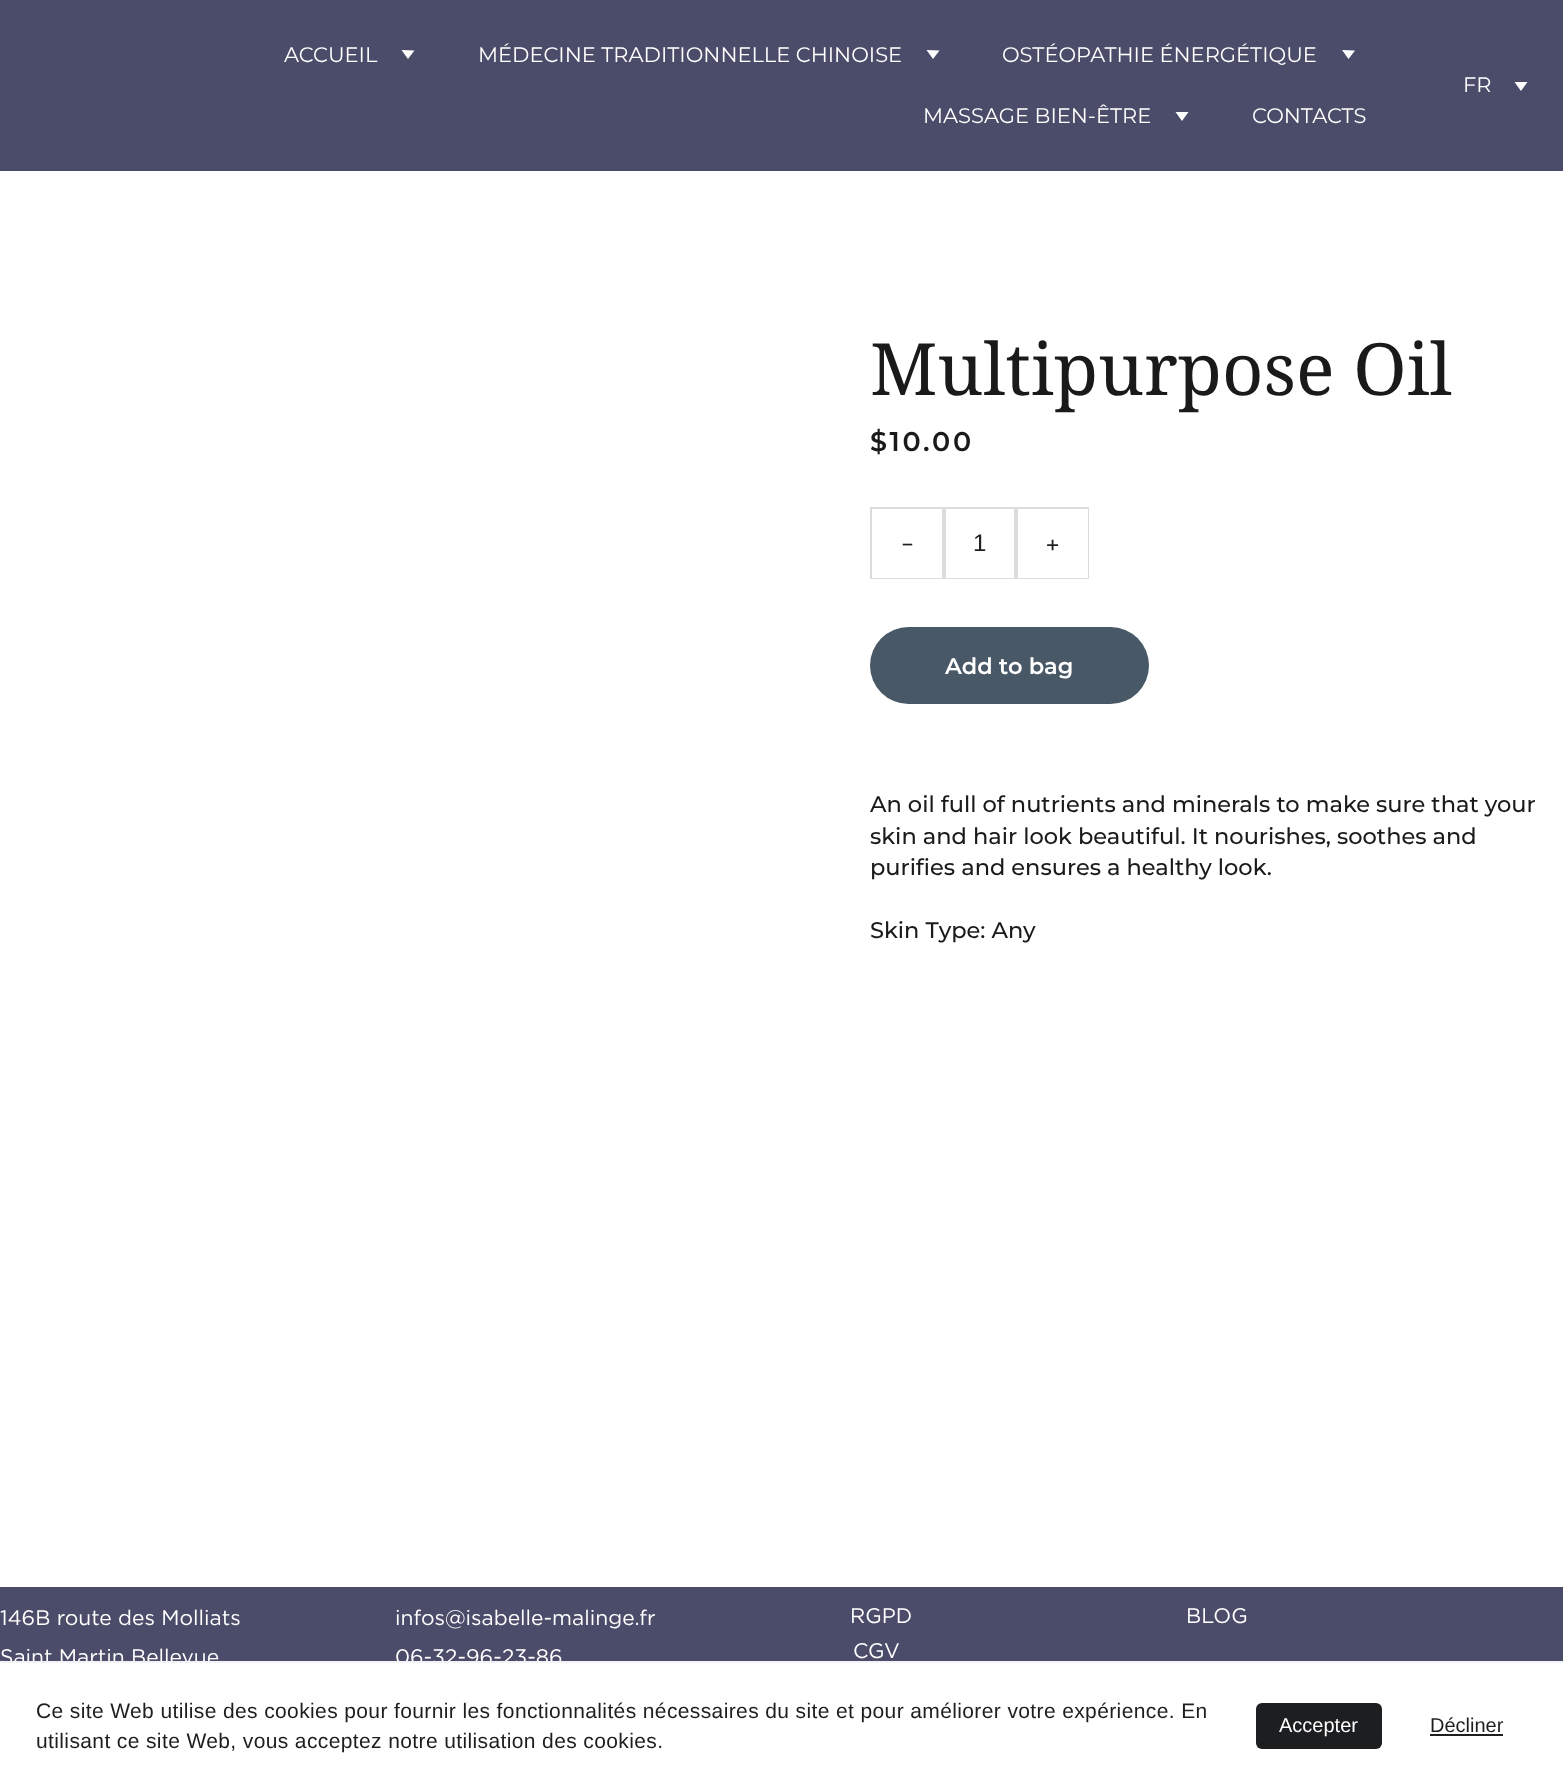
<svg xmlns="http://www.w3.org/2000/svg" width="1563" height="1787">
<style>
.a{font:100 21px 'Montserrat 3';fill:#fff}
.b{font:72px Noto Serif;fill:#1a1a1a}
.c{font:100 27px Montserrat;letter-spacing:2.75px;fill:#1a1a1a}
.d{font:24px DM Sans;fill:#1d1e20}
.e{font:24px Liberation Sans;fill:#1d1e20}
.f{font:100 22.5px Montserrat;fill:#fff}
.g{font:100 22.5px 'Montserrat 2';fill:#1a1a1a}
.h{font:21px Gotham;fill:#fff}
.i{font:21px Liberation Sans;letter-spacing:0.38px;fill:#1d1e20}
.j{font:20px Liberation Sans;fill:#fff}
.k{font:20px Liberation Sans;fill:#1d1e20}
</style>
<rect width="100%" height="100%" fill="#fff"/>
<path fill="#4b4c6a" d="M0 0h1563v171H0z"/>
<path fill="#fff" d="M408 59l-6.5-9l13 .5z"/>
<path fill="#fff" d="M933 59l-6.5-9l13 .5z"/>
<path fill="#fff" d="M1348.5 59l-6.5-9l13 .5z"/>
<path fill="#fff" d="M1182 121l-6.5-9h13z"/>
<path fill="#fff" d="M1521 91l-6.5-9h13z"/>
<path fill="none" stroke="#dadce0" stroke-width="2" d="M871 508h217v70H871z"/>
<path fill="#fff" d="M872 577h70v1H872z"/>
<path fill="#dadce0" d="M942 509h4v69H942z"/>
<path fill="#fff" d="M946 577h68v1H946z"/>
<path fill="#dadce0" d="M1014 509h4v69H1014z"/>
<path fill="#fff" d="M1018 509h70v69H1018z"/>
<rect fill="#495867" x="870" y="627" width="279" height="77" rx="38.5"/>
<path fill="#4b4c6a" d="M0 1587h1563v74H0z"/>
<rect fill="#1d1e20" x="1256" y="1703" width="126" height="46" rx="6"/>
<path fill="#1d1e20" d="M1430 1734h73v2H1430z"/>
<text class="a" x="284" y="62">ACCUEIL</text>
<text class="a" x="478" y="62">MÉDECINE TRADITIONNELLE CHINOISE</text>
<text class="a" x="1002" y="62">OSTÉOPATHIE ÉNERGÉTIQUE</text>
<text class="a" x="923" y="123">MASSAGE BIEN-ÊTRE</text>
<text class="a" x="1252" y="123">CONTACTS</text>
<text class="a" x="1463" y="92">FR</text>
<text class="b" x="870" y="395">Multipurpose Oil</text>
<text class="c" x="870" y="451">$10.00</text>
<text class="d" x="901" y="552">-</text>
<text class="e" x="973" y="551">1</text>
<text class="d" x="1046" y="552">+</text>
<text class="f" x="945" y="674">Add to bag</text>
<text class="g" x="870" y="812">An oil full of nutrients and minerals to make sure that your</text>
<text class="g" x="870" y="844">skin and hair look beautiful. It nourishes, soothes and</text>
<text class="g" x="870" y="875">purifies and ensures a healthy look.</text>
<text class="g" x="870" y="938">Skin Type: Any</text>
<text class="h" x="0" y="1625">146B route des Molliats</text>
<text class="h" x="0" y="1664">Saint Martin Bellevue</text>
<text class="h" x="395" y="1625">infos@isabelle-malinge.fr</text>
<text class="h" x="395" y="1664">06-32-96-23-86</text>
<text class="h" x="850" y="1623">RGPD</text>
<text class="h" x="1186" y="1623">BLOG</text>
<text class="h" x="853" y="1658">CGV</text>
<path fill="#f2f3f6" d="M0 1661h1563v2H0z"/>
<text class="i" x="36" y="1718">Ce site Web utilise des cookies pour fournir les fonctionnalités nécessaires du site et pour améliorer votre expérience. En</text>
<text class="i" x="36" y="1748">utilisant ce site Web, vous acceptez notre utilisation des cookies.</text>
<text class="j" x="1279" y="1732">Accepter</text>
<text class="k" x="1430" y="1732">Décliner</text>
</svg>
